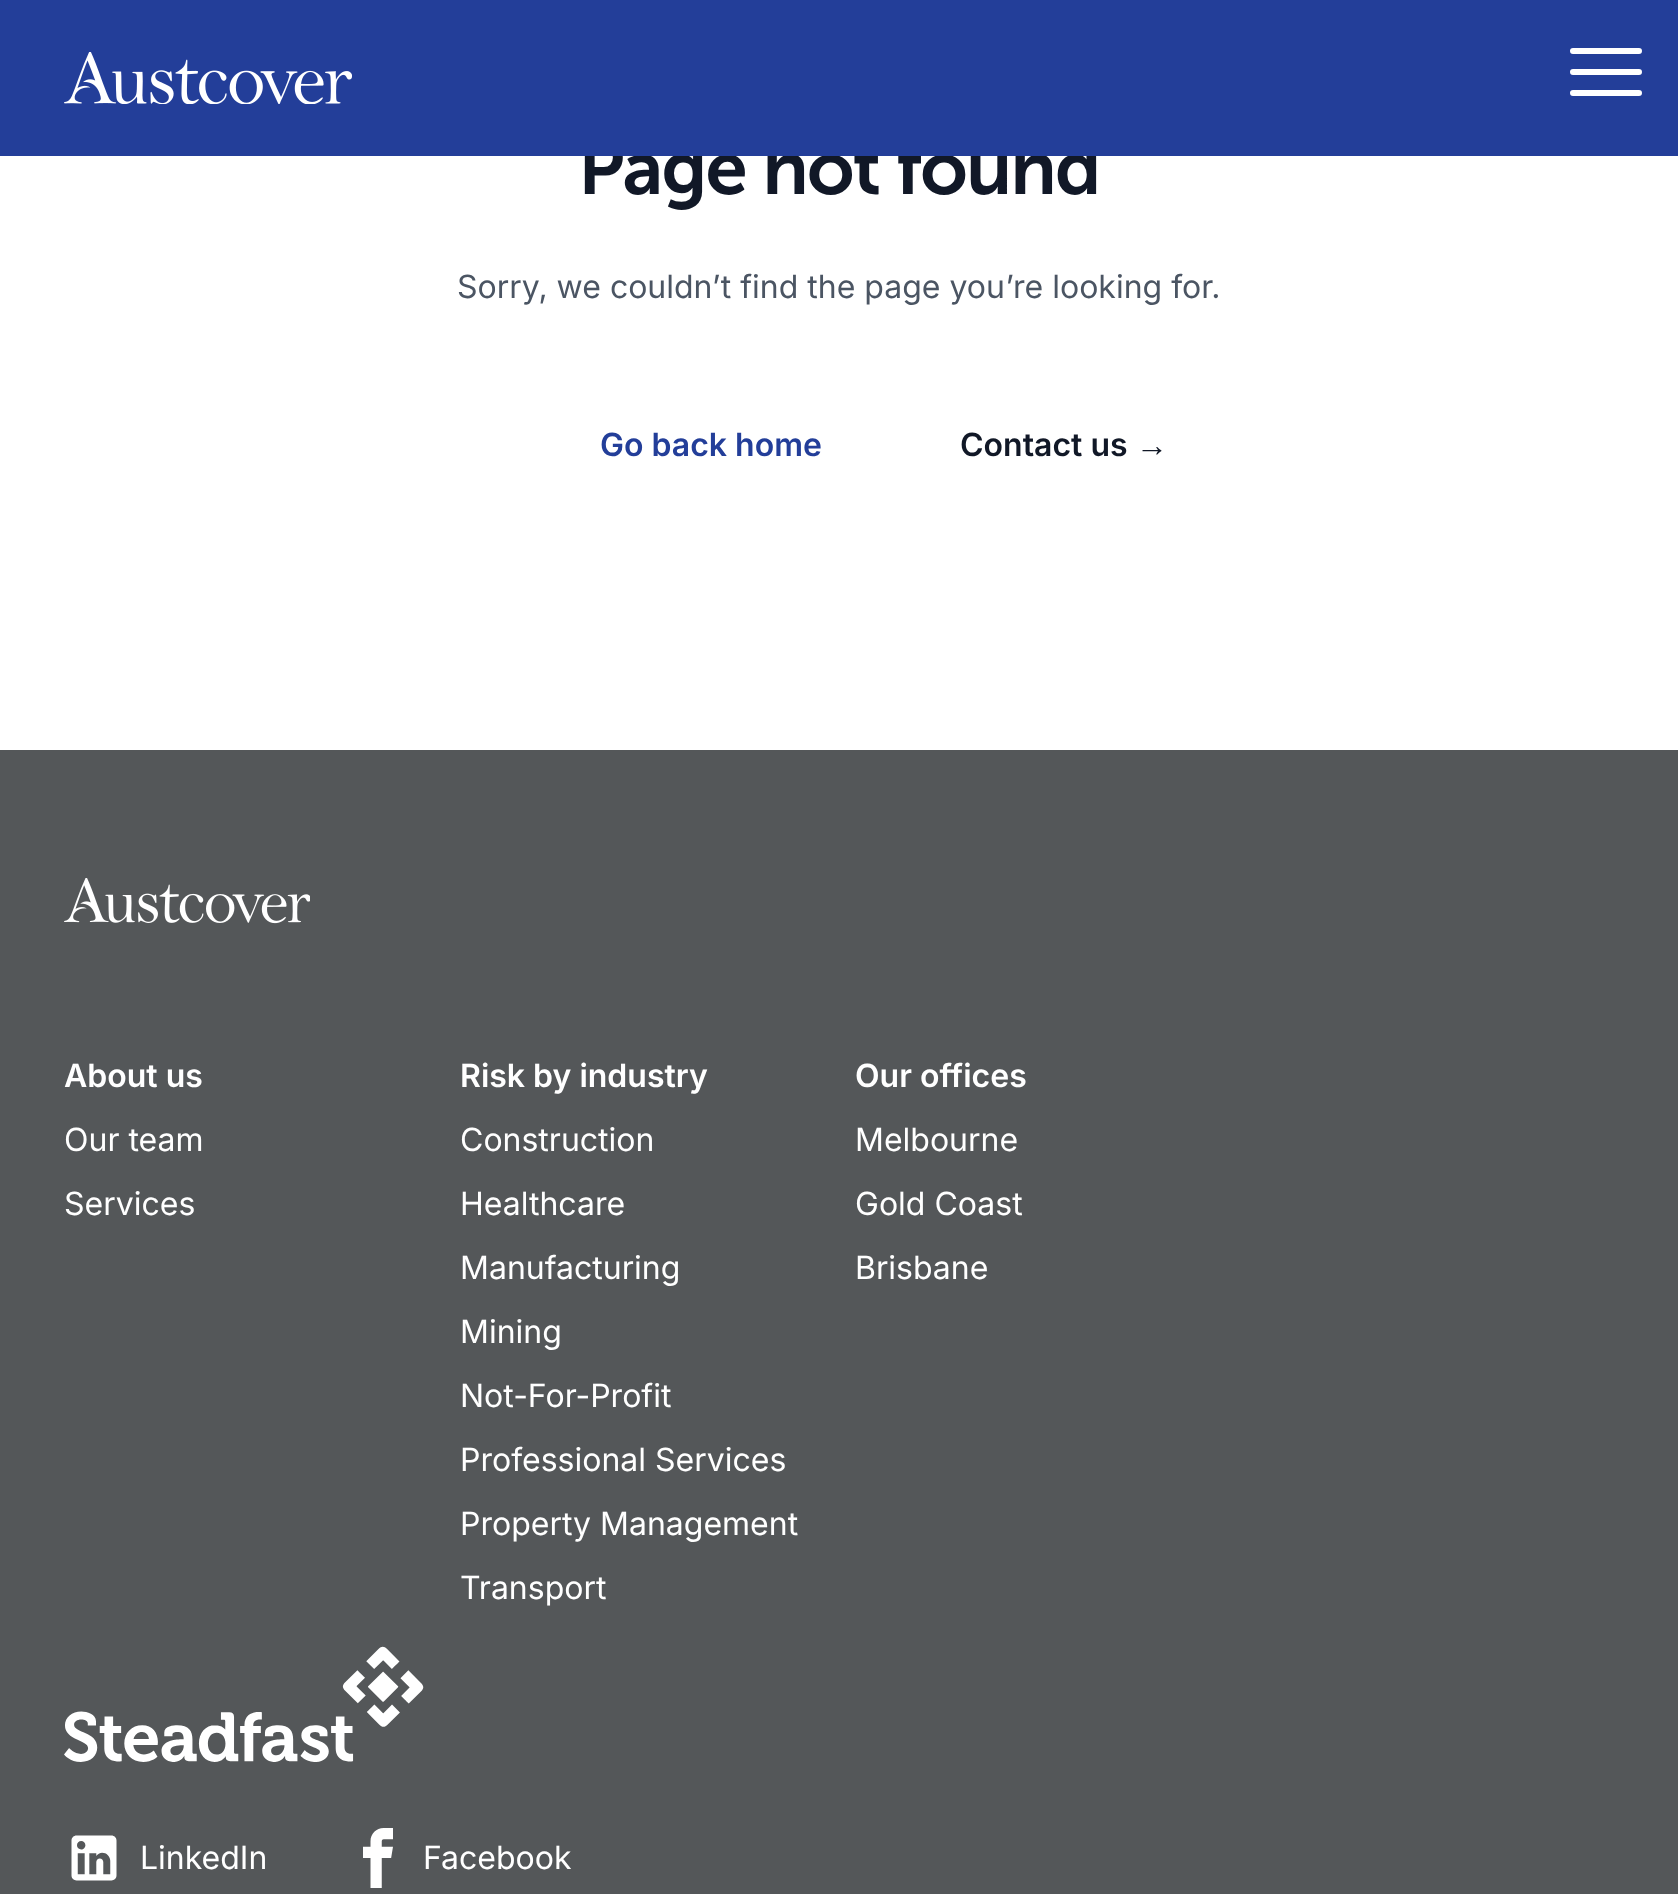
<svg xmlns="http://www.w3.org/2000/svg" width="1678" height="1894">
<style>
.a{font:600 76px 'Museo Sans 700';letter-spacing:-1.9px;fill:#111827}
.b{font:32px Inter;fill:#4b5563}
.c{font:600 32px Inter;fill:#233e99}
.d{font:600 32px Inter;fill:#111827}
.e{font:bold 32px Liberation Serif;fill:#111827}
.f{font:600 32px Inter;fill:#fff}
.g{font:32px Inter;fill:#fff}
</style>
<rect width="100%" height="100%" fill="#fff"/>
<path fill="#545759" d="M0 750h1678v1144H0z"/>
<image href="3.png" x="64" y="878" width="246" height="46"/>
<image href="4.png" x="64" y="1646" width="360" height="116"/>
<image href="5.png" x="71" y="1835" width="46" height="46"/>
<image href="6.png" x="363" y="1828" width="30" height="60"/>
<text class="a" x="578" y="194">Page not found</text>
<path fill="#233e99" d="M0 0h1678v156H0z"/>
<image href="2.png" x="1570" y="48" width="72" height="48"/>
<image href="1.png" x="64" y="52" width="288" height="52"/>
<text class="b" x="457" y="298">Sorry, we couldn’t find the page you’re looking for.</text>
<text class="c" x="600" y="456">Go back home</text>
<text class="d" x="960" y="456">Contact us</text>
<text class="e" x="1136" y="456">→</text>
<text class="f" x="64" y="1087">About us</text>
<text class="g" x="64" y="1151">Our team</text>
<text class="g" x="64" y="1215">Services</text>
<text class="f" x="460" y="1087">Risk by industry</text>
<text class="g" x="460" y="1151">Construction</text>
<text class="g" x="460" y="1215">Healthcare</text>
<text class="g" x="460" y="1279">Manufacturing</text>
<text class="g" x="460" y="1343">Mining</text>
<text class="g" x="460" y="1407">Not-For-Profit</text>
<text class="g" x="460" y="1471">Professional Services</text>
<text class="g" x="460" y="1535">Property Management</text>
<text class="g" x="460" y="1599">Transport</text>
<text class="f" x="855" y="1087">Our offices</text>
<text class="g" x="855" y="1151">Melbourne</text>
<text class="g" x="855" y="1215">Gold Coast</text>
<text class="g" x="855" y="1279">Brisbane</text>
<text class="g" x="140" y="1869">LinkedIn</text>
<text class="g" x="423" y="1869">Facebook</text>
</svg>
